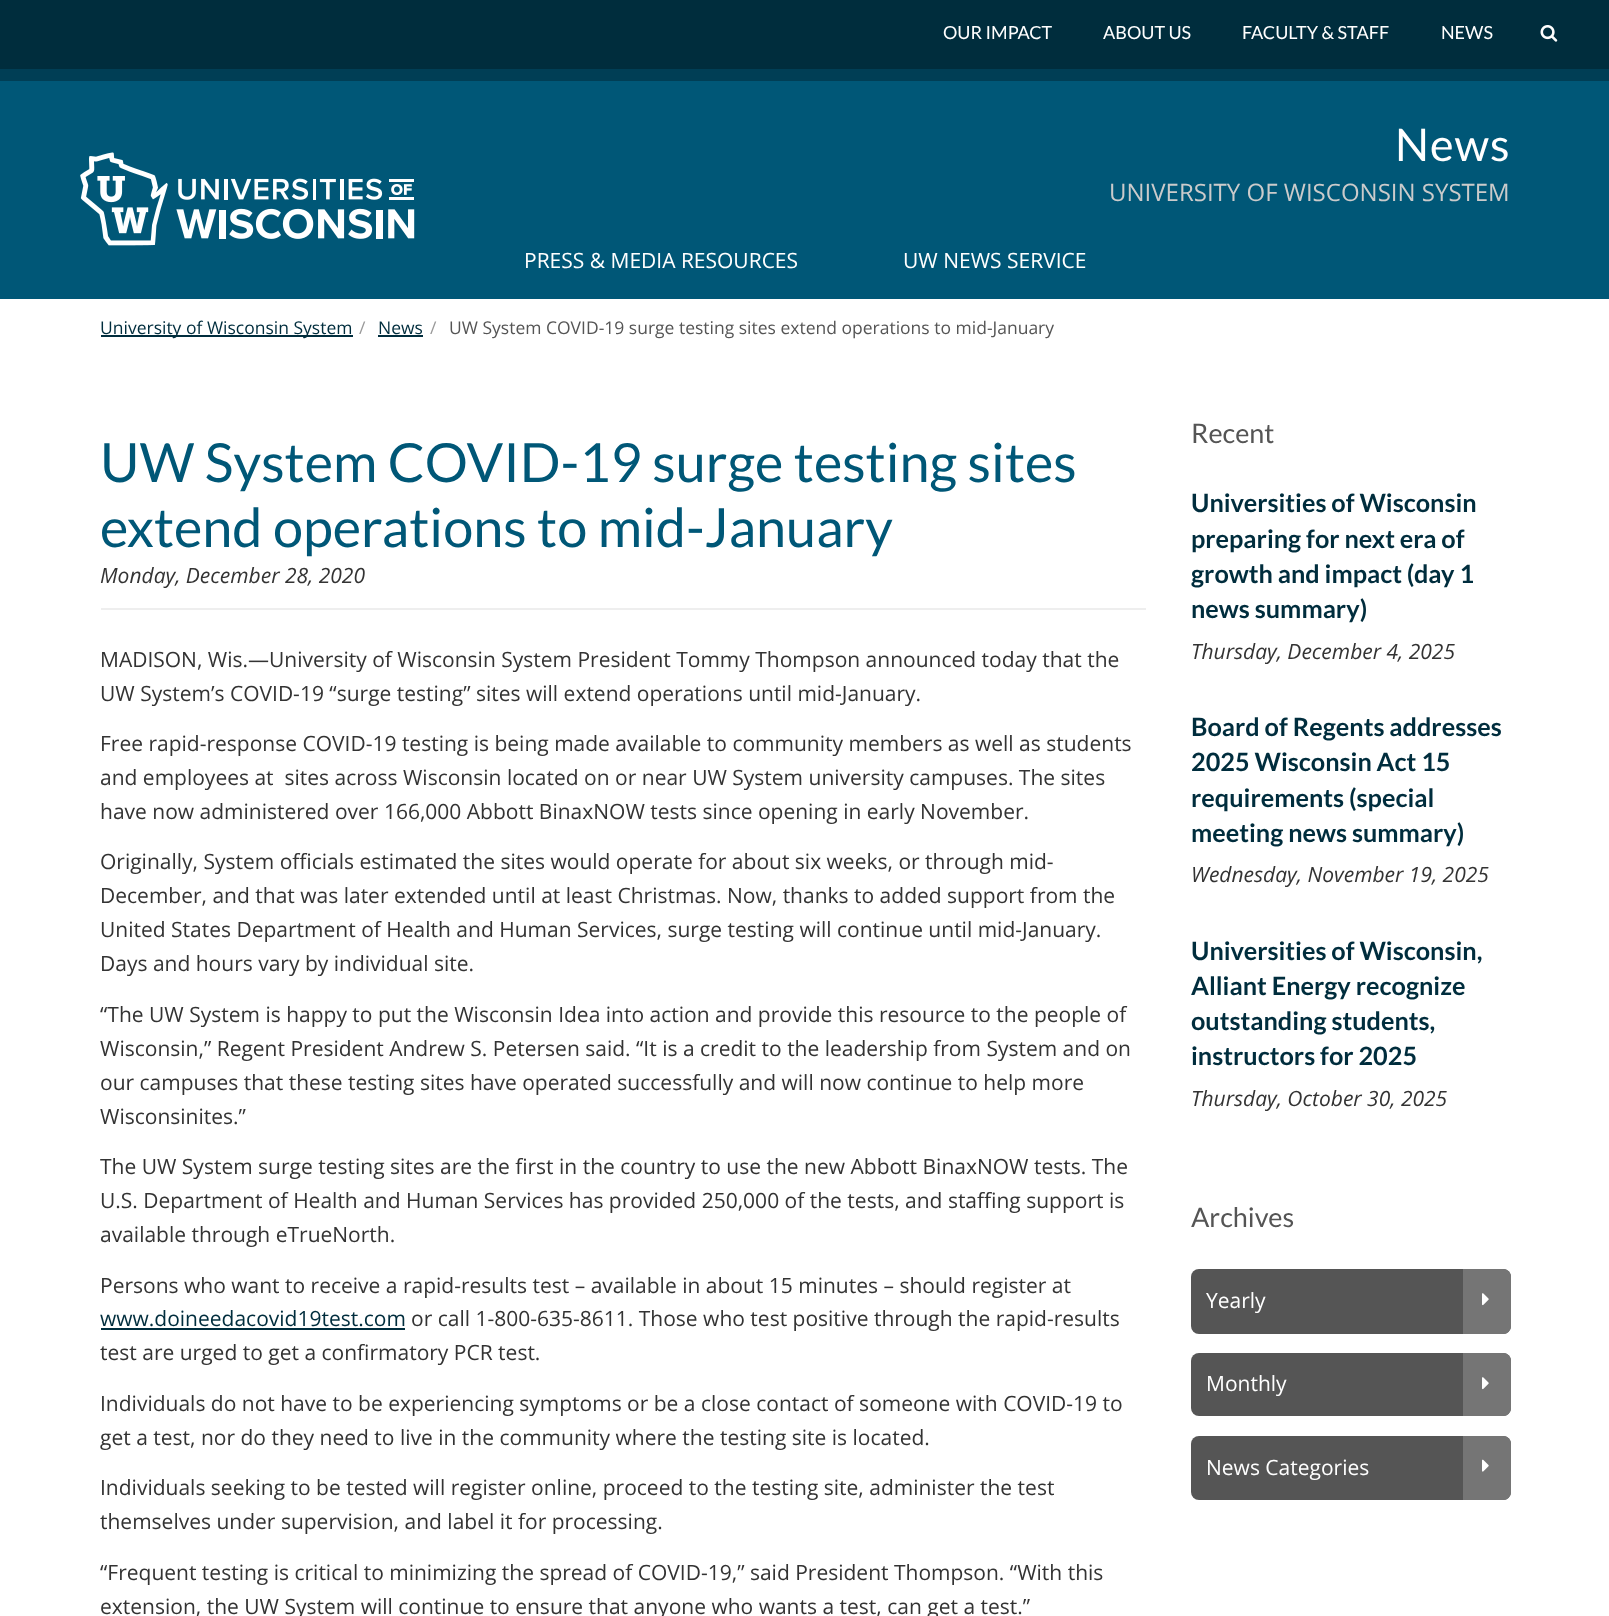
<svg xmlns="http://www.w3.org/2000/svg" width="1609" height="1616">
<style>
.a{font:18px Lato;fill:#fff}
.b{font:45px Lato;letter-spacing:1px;fill:#fff}
.c{font:24px Open Sans;fill:#cbcbcb}
.d{font:21px Open Sans;fill:#fff}
.e{font:17.5px Open Sans;fill:#002d3d}
.f{font:17.5px Open Sans;fill:#999}
.g{font:17.5px Open Sans;fill:#555}
.h{font:54px Lato;fill:#005777}
.i{font:italic 21px Open Sans;fill:#333}
.j{font:21px Open Sans;fill:#333}
.k{font:21px Open Sans;fill:#002d3d}
.l{font:27px Lato;fill:#555}
.m{font:bold 25.25px Lato;fill:#002d3d}
</style>
<rect width="100%" height="100%" fill="#fff"/>
<path fill="#002d3d" d="M0 0h1609v69H0z"/>
<path fill="#003e55" d="M0 69h1609v12H0z"/>
<image href="1.png" x="1540" y="25" width="18" height="17"/>
<path fill="#005777" d="M0 81h1609v218H0z"/>
<image href="2.png" x="80" y="152" width="335" height="94"/>
<path fill="#002d3d" d="M101 335h252v2H101z"/>
<path fill="#002d3d" d="M378 335h45v2H378z"/>
<path fill="#eee" d="M101 608h1045v2H101z"/>
<path fill="#002d3d" d="M101 1328h304v2H101z"/>
<rect fill="#555" x="1191" y="1269" width="320" height="65" rx="8"/>
<path fill="#757575" d="M1463 1269h40c4.5 0 8 3.5 8 8v49c0 4.5-3.5 8-8 8h-40z"/>
<image href="3.png" x="1482" y="1293" width="7" height="13"/>
<rect fill="#555" x="1191" y="1353" width="320" height="63" rx="8"/>
<path fill="#757575" d="M1463 1353h40c4.5 0 8 3.5 8 8v47c0 4.5-3.5 8-8 8h-40z"/>
<image href="3.png" x="1482" y="1377" width="7" height="13"/>
<rect fill="#555" x="1191" y="1436" width="320" height="64" rx="8"/>
<path fill="#757575" d="M1463 1436h40c4.5 0 8 3.5 8 8v48c0 4.5-3.5 8-8 8h-40z"/>
<image href="4.png" x="1482" y="1459" width="7" height="13"/>
<text class="a" x="943" y="39">OUR IMPACT</text>
<text class="a" x="1103" y="39">ABOUT US</text>
<text class="a" x="1242" y="39">FACULTY &amp; STAFF</text>
<text class="a" x="1441" y="39">NEWS</text>
<text class="b" x="1395" y="161">News</text>
<text class="c" x="1109" y="201">UNIVERSITY OF WISCONSIN SYSTEM</text>
<text class="d" x="524" y="268">PRESS &amp; MEDIA RESOURCES</text>
<text class="d" x="903" y="268">UW NEWS SERVICE</text>
<text class="e" x="100" y="334">University of Wisconsin System</text>
<text class="f" x="359" y="334">/</text>
<text class="e" x="378" y="334">News</text>
<text class="f" x="430" y="334">/</text>
<text class="g" x="449" y="334">UW System COVID-19 surge testing sites extend operations to mid-January</text>
<text class="h" x="100" y="482">UW System COVID-19 surge testing sites</text>
<text class="h" x="100" y="547">extend operations to mid-January</text>
<text class="i" x="100" y="583">Monday, December 28, 2020</text>
<text class="j" x="100" y="667">MADISON, Wis.—University of Wisconsin System President Tommy Thompson announced today that the</text>
<text class="j" x="100" y="701">UW System’s COVID-19 “surge testing” sites will extend operations until mid-January.</text>
<text class="j" x="100" y="751">Free rapid-response COVID-19 testing is being made available to community members as well as students</text>
<text class="j" xml:space="preserve" x="100" y="785">and employees at  sites across Wisconsin located on or near UW System university campuses. The sites</text>
<text class="j" x="100" y="819">have now administered over 166,000 Abbott BinaxNOW tests since opening in early November.</text>
<text class="j" x="100" y="869">Originally, System officials estimated the sites would operate for about six weeks, or through mid-</text>
<text class="j" x="100" y="903">December, and that was later extended until at least Christmas. Now, thanks to added support from the</text>
<text class="j" x="100" y="937">United States Department of Health and Human Services, surge testing will continue until mid-January.</text>
<text class="j" x="100" y="971">Days and hours vary by individual site.</text>
<text class="j" x="100" y="1022">“The UW System is happy to put the Wisconsin Idea into action and provide this resource to the people of</text>
<text class="j" x="100" y="1056">Wisconsin,” Regent President Andrew S. Petersen said. “It is a credit to the leadership from System and on</text>
<text class="j" x="100" y="1090">our campuses that these testing sites have operated successfully and will now continue to help more</text>
<text class="j" x="100" y="1124">Wisconsinites.”</text>
<text class="j" x="100" y="1174">The UW System surge testing sites are the first in the country to use the new Abbott BinaxNOW tests. The</text>
<text class="j" x="100" y="1208">U.S. Department of Health and Human Services has provided 250,000 of the tests, and staffing support is</text>
<text class="j" x="100" y="1242">available through eTrueNorth.</text>
<text class="j" x="100" y="1293">Persons who want to receive a rapid-results test – available in about 15 minutes – should register at</text>
<text class="k" x="100" y="1326">www.doineedacovid19test.com</text>
<text class="j" x="411" y="1326">or call 1-800-635-8611. Those who test positive through the rapid-results</text>
<text class="j" x="100" y="1360">test are urged to get a confirmatory PCR test.</text>
<text class="j" x="100" y="1411">Individuals do not have to be experiencing symptoms or be a close contact of someone with COVID-19 to</text>
<text class="j" x="100" y="1445">get a test, nor do they need to live in the community where the testing site is located.</text>
<text class="j" x="100" y="1495">Individuals seeking to be tested will register online, proceed to the testing site, administer the test</text>
<text class="j" x="100" y="1529">themselves under supervision, and label it for processing.</text>
<text class="j" x="100" y="1580">“Frequent testing is critical to minimizing the spread of COVID-19,” said President Thompson. “With this</text>
<text class="j" x="100" y="1614">extension, the UW System will continue to ensure that anyone who wants a test, can get a test.”</text>
<text class="l" x="1191" y="443">Recent</text>
<text class="m" x="1191" y="512">Universities of Wisconsin</text>
<text class="m" x="1191" y="548">preparing for next era of</text>
<text class="m" x="1191" y="583">growth and impact (day 1</text>
<text class="m" x="1191" y="618">news summary)</text>
<text class="i" x="1191" y="659">Thursday, December 4, 2025</text>
<text class="m" x="1191" y="736">Board of Regents addresses</text>
<text class="m" x="1191" y="771">2025 Wisconsin Act 15</text>
<text class="m" x="1191" y="807">requirements (special</text>
<text class="m" x="1191" y="842">meeting news summary)</text>
<text class="i" x="1191" y="882">Wednesday, November 19, 2025</text>
<text class="m" x="1191" y="960">Universities of Wisconsin,</text>
<text class="m" x="1191" y="995">Alliant Energy recognize</text>
<text class="m" x="1191" y="1030">outstanding students,</text>
<text class="m" x="1191" y="1065">instructors for 2025</text>
<text class="i" x="1191" y="1106">Thursday, October 30, 2025</text>
<text class="l" x="1191" y="1227">Archives</text>
<text class="d" x="1206" y="1308">Yearly</text>
<text class="d" x="1206" y="1391">Monthly</text>
<text class="d" x="1206" y="1475">News Categories</text>
</svg>
